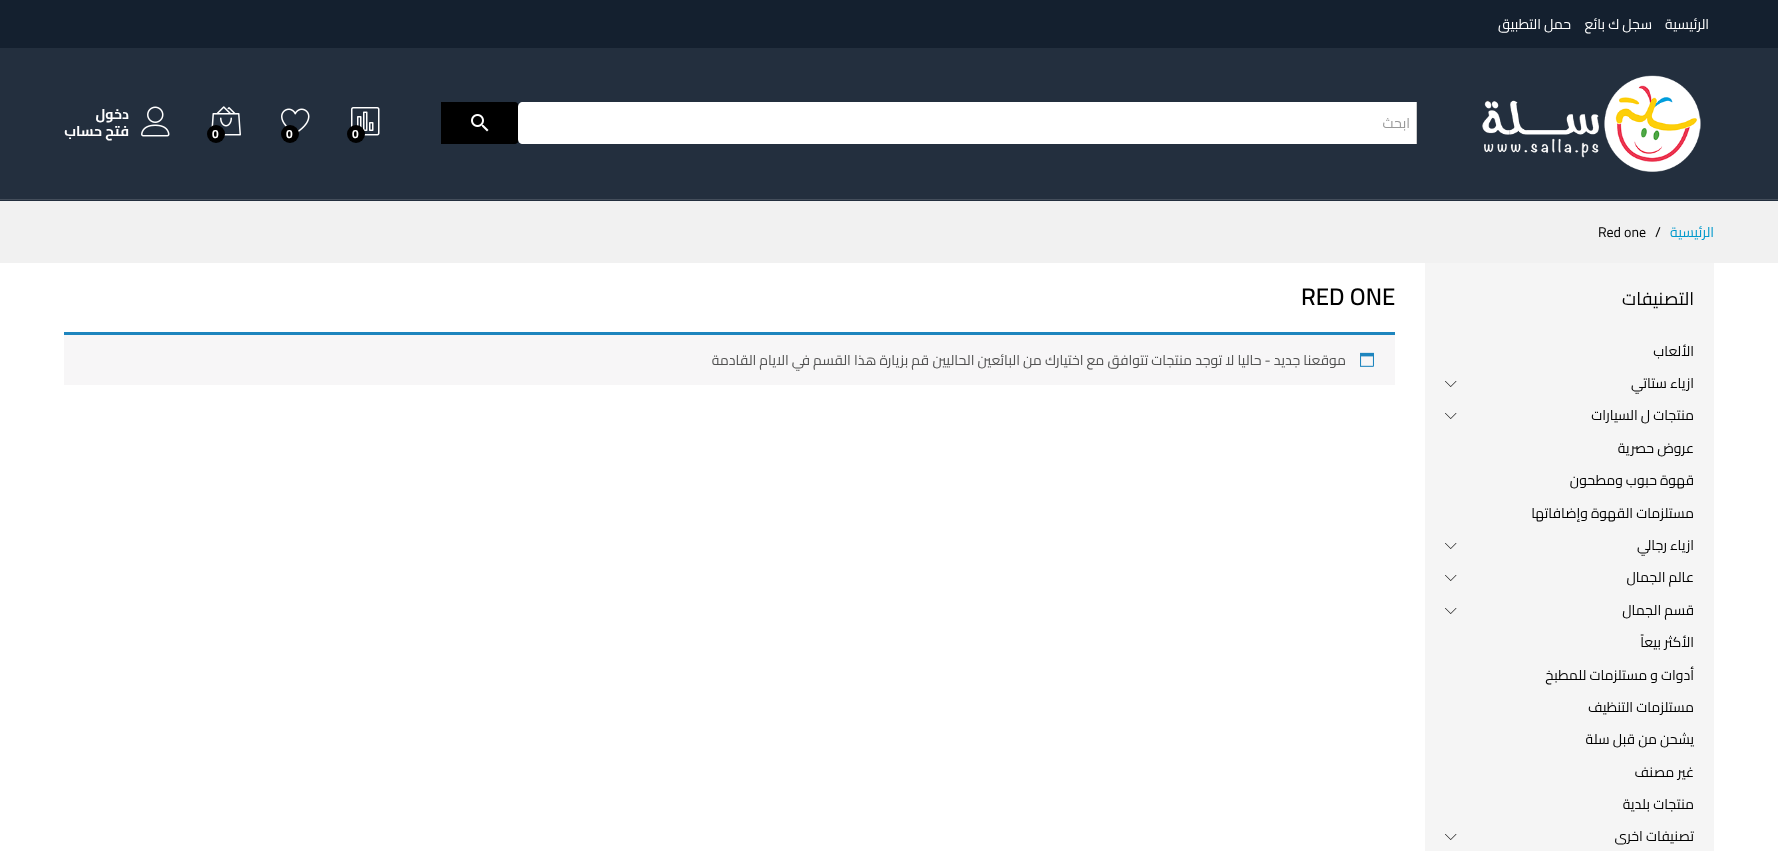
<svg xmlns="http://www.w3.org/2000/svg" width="1778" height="851">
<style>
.a{font:14px Cairo;direction:rtl;fill:#fff}
.b{font:14px Cairo;direction:rtl;fill:#999}
.c{font:bold 12px Cairo;fill:#fff}
.d{font:bold 14px Cairo;direction:rtl;fill:#fff}
.e{font:14px Cairo;direction:rtl;fill:#09c}
.f{font:14px Cairo;fill:#000}
.g{font:18px Cairo;direction:rtl;fill:#000}
.h{font:14px Cairo;direction:rtl;fill:#000}
.i{font:600 24px Cairo;fill:#000}
.j{font:14px Cairo;direction:rtl;fill:#515151}
</style>
<rect width="100%" height="100%" fill="#fff"/>
<path fill="#14202f" d="M0 0h1778v48H0z"/>
<path fill="#232f3e" d="M0 48h1778v153H0z"/>
<image href="1.png" x="1482" y="75" width="219" height="97"/>
<path fill="#000" d="M441 102h73c3 0 5 2 5 5v32c0 3-2 5-5 5h-73z"/>
<path fill="#fff" d="M523 102h894v42h-894c-3 0-5-2-5-5v-32c0-3 2-5 5-5z"/>
<path fill="#ccc" d="M1416 102h1v42H1416z"/>
<image href="2.png" x="471" y="114" width="18" height="18"/>
<image href="3.png" x="351" y="107" width="29" height="29"/>
<circle fill="#000" cx="356" cy="134" r="9"/>
<image href="4.png" x="281" y="108" width="29" height="25"/>
<circle fill="#000" cx="290" cy="134" r="9"/>
<image href="5.png" x="211" y="106" width="30" height="30"/>
<circle fill="#000" cx="216" cy="134" r="9"/>
<image href="6.png" x="141" y="106" width="29" height="31"/>
<path fill="#444e5b" d="M0 199h1778v1H0z"/>
<path fill="#f1f1f1" d="M0 201h1778v62H0z"/>
<path fill="#f5f5f5" d="M1425 263h289v588H1425z"/>
<image href="7.png" x="1445" y="381" width="12" height="6"/>
<image href="7.png" x="1445" y="413" width="12" height="6"/>
<image href="7.png" x="1445" y="543" width="12" height="6"/>
<image href="7.png" x="1445" y="575" width="12" height="6"/>
<image href="7.png" x="1445" y="608" width="12" height="6"/>
<image href="7.png" x="1445" y="834" width="12" height="6"/>
<path fill="#f7f6f7" d="M64 335h1331v50H64z"/>
<path fill="#1e85be" d="M64 332h1331v3H64z"/>
<image href="8.png" x="1360" y="352" width="14" height="15"/>
<text class="a" x="1709" y="29">الرئيسية</text>
<text class="a" x="1652" y="29">سجل ك بائع</text>
<text class="a" x="1571" y="29">حمل التطبيق</text>
<text class="b" x="1410" y="128">ابحث</text>
<text class="c" x="352" y="138">0</text>
<text class="c" x="286" y="138">0</text>
<text class="c" x="212" y="138">0</text>
<text class="d" x="129" y="119">دخول</text>
<text class="d" x="129" y="136">فتح حساب</text>
<text class="e" x="1714" y="237">الرئيسية</text>
<text class="f" x="1655" y="237">/</text>
<text class="f" x="1598" y="237">Red one</text>
<text class="g" x="1694" y="305">التصنيفات</text>
<text class="h" x="1694" y="356">الألعاب</text>
<text class="h" x="1694" y="388">ازياء ستاتي</text>
<text class="h" x="1694" y="420">منتجات ل السيارات</text>
<text class="h" x="1694" y="453">عروض حصرية</text>
<text class="h" x="1694" y="485">قهوة حبوب ومطحون</text>
<text class="h" x="1694" y="518">مستلزمات القهوة وإضافاتها</text>
<text class="h" x="1694" y="550">ازياء رجالي</text>
<text class="h" x="1694" y="582">عالم الجمال</text>
<text class="h" x="1694" y="615">قسم الجمال</text>
<text class="h" x="1694" y="647">الأكثر بيعاً</text>
<text class="h" x="1694" y="680">أدوات و مستلزمات للمطبخ</text>
<text class="h" x="1694" y="712">مستلزمات التنظيف</text>
<text class="h" x="1694" y="744">يشحن من قبل سلة</text>
<text class="h" x="1694" y="777">غير مصنف</text>
<text class="h" x="1694" y="809">منتجات بلدية</text>
<text class="h" x="1694" y="841">تصنيفات اخرى</text>
<text class="i" x="1301" y="305">RED ONE</text>
<text class="j" x="1346" y="365">موقعنا جديد - حاليا لا توجد منتجات تتوافق مع اختيارك من البائعين الحاليين</text>
<text class="j" x="929" y="365">قم بزيارة هذا القسم في الايام القادمة</text>
</svg>
